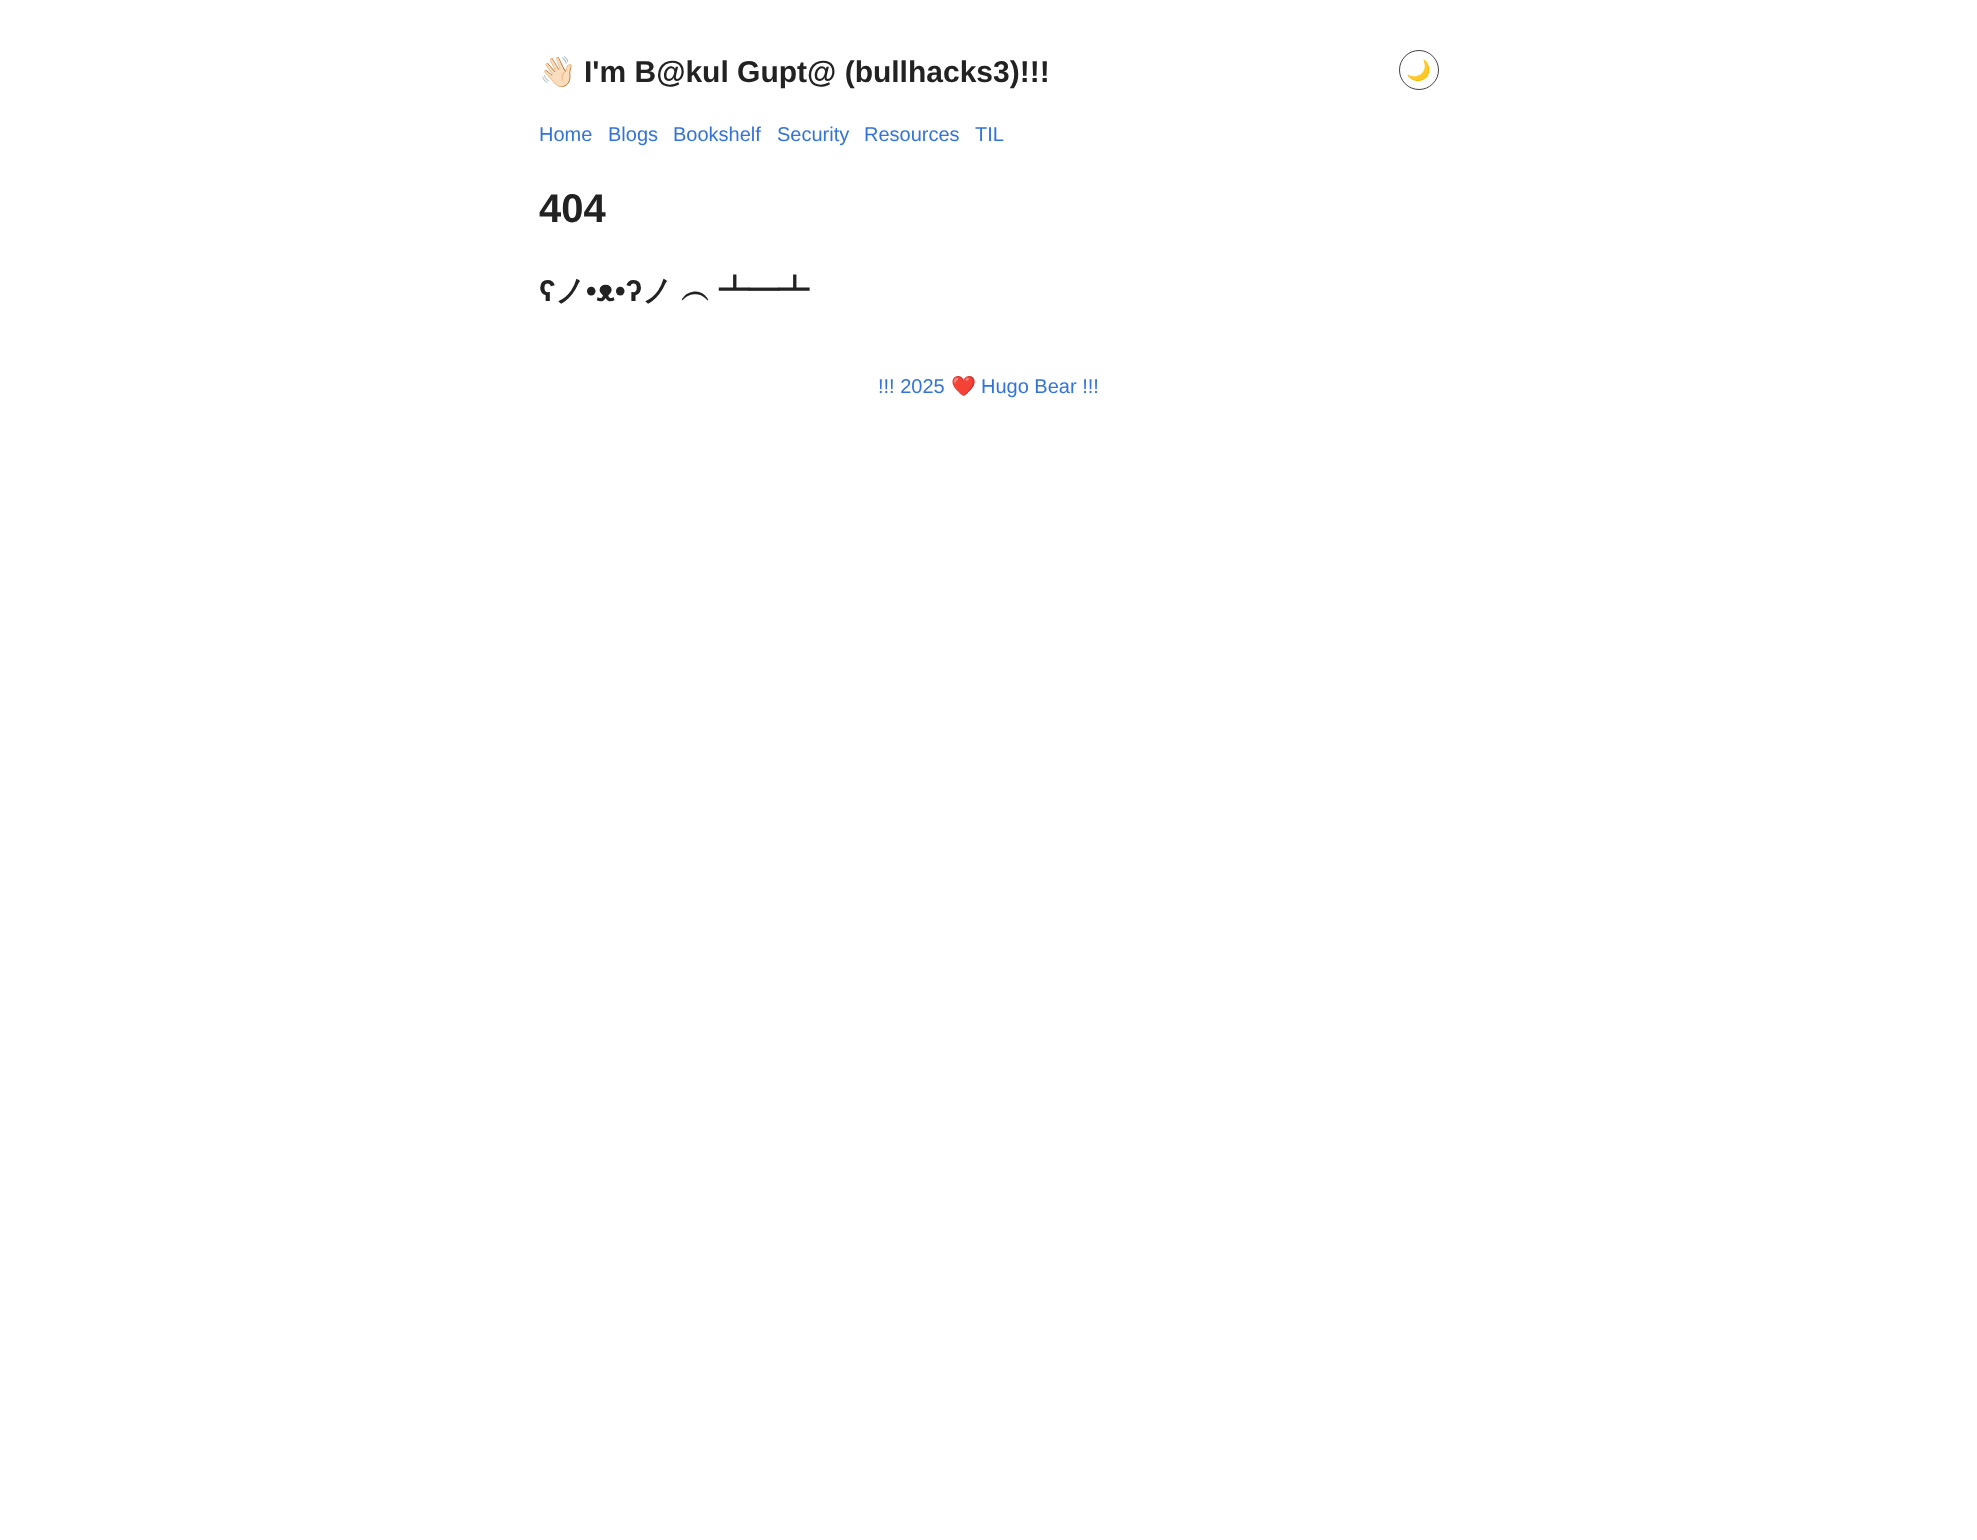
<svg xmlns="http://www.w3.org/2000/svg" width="1977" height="1540">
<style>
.a{font:bold 30px Noto Color Emoji;fill:#222}
.b{font:bold 30px Liberation Sans;fill:#222}
.c{font:20px Noto Color Emoji;fill:#000}
.d{font:20px Liberation Sans;fill:#3273dc}
.e{font:bold 40px Liberation Sans;fill:#222}
.f{font:bold 30px WenQuanYi Zen Hei;fill:#222}
.g{font:20px Noto Color Emoji;fill:#3273dc}
</style>
<rect width="100%" height="100%" fill="#fff"/>
<circle fill="none" stroke="#444" cx="1419" cy="70" r="19.5"/>
<text class="a" x="539" y="82">👋🏻</text>
<text class="b" x="584" y="82">I'm B@kul Gupt@ (bullhacks3)!!!</text>
<text class="c" x="1406" y="77">🌙</text>
<text class="d" x="539" y="141">Home</text>
<text class="d" x="608" y="141">Blogs</text>
<text class="d" x="673" y="141">Bookshelf</text>
<text class="d" x="777" y="141">Security</text>
<text class="d" x="864" y="141">Resources</text>
<text class="d" x="975" y="141">TIL</text>
<text class="e" x="539" y="222">404</text>
<text class="b" x="539" y="301">ʕ</text>
<text class="f" x="555" y="301">ノ</text>
<text class="b" x="586" y="301">•ᴥ•ʔ</text>
<text class="f" x="642" y="301" word-spacing="-1">ノ ︵ ┻━┻</text>
<text class="d" x="878" y="393">!!! 2025</text>
<text class="g" x="951" y="393">❤️</text>
<text class="d" x="981" y="393">Hugo Bear !!!</text>
</svg>
